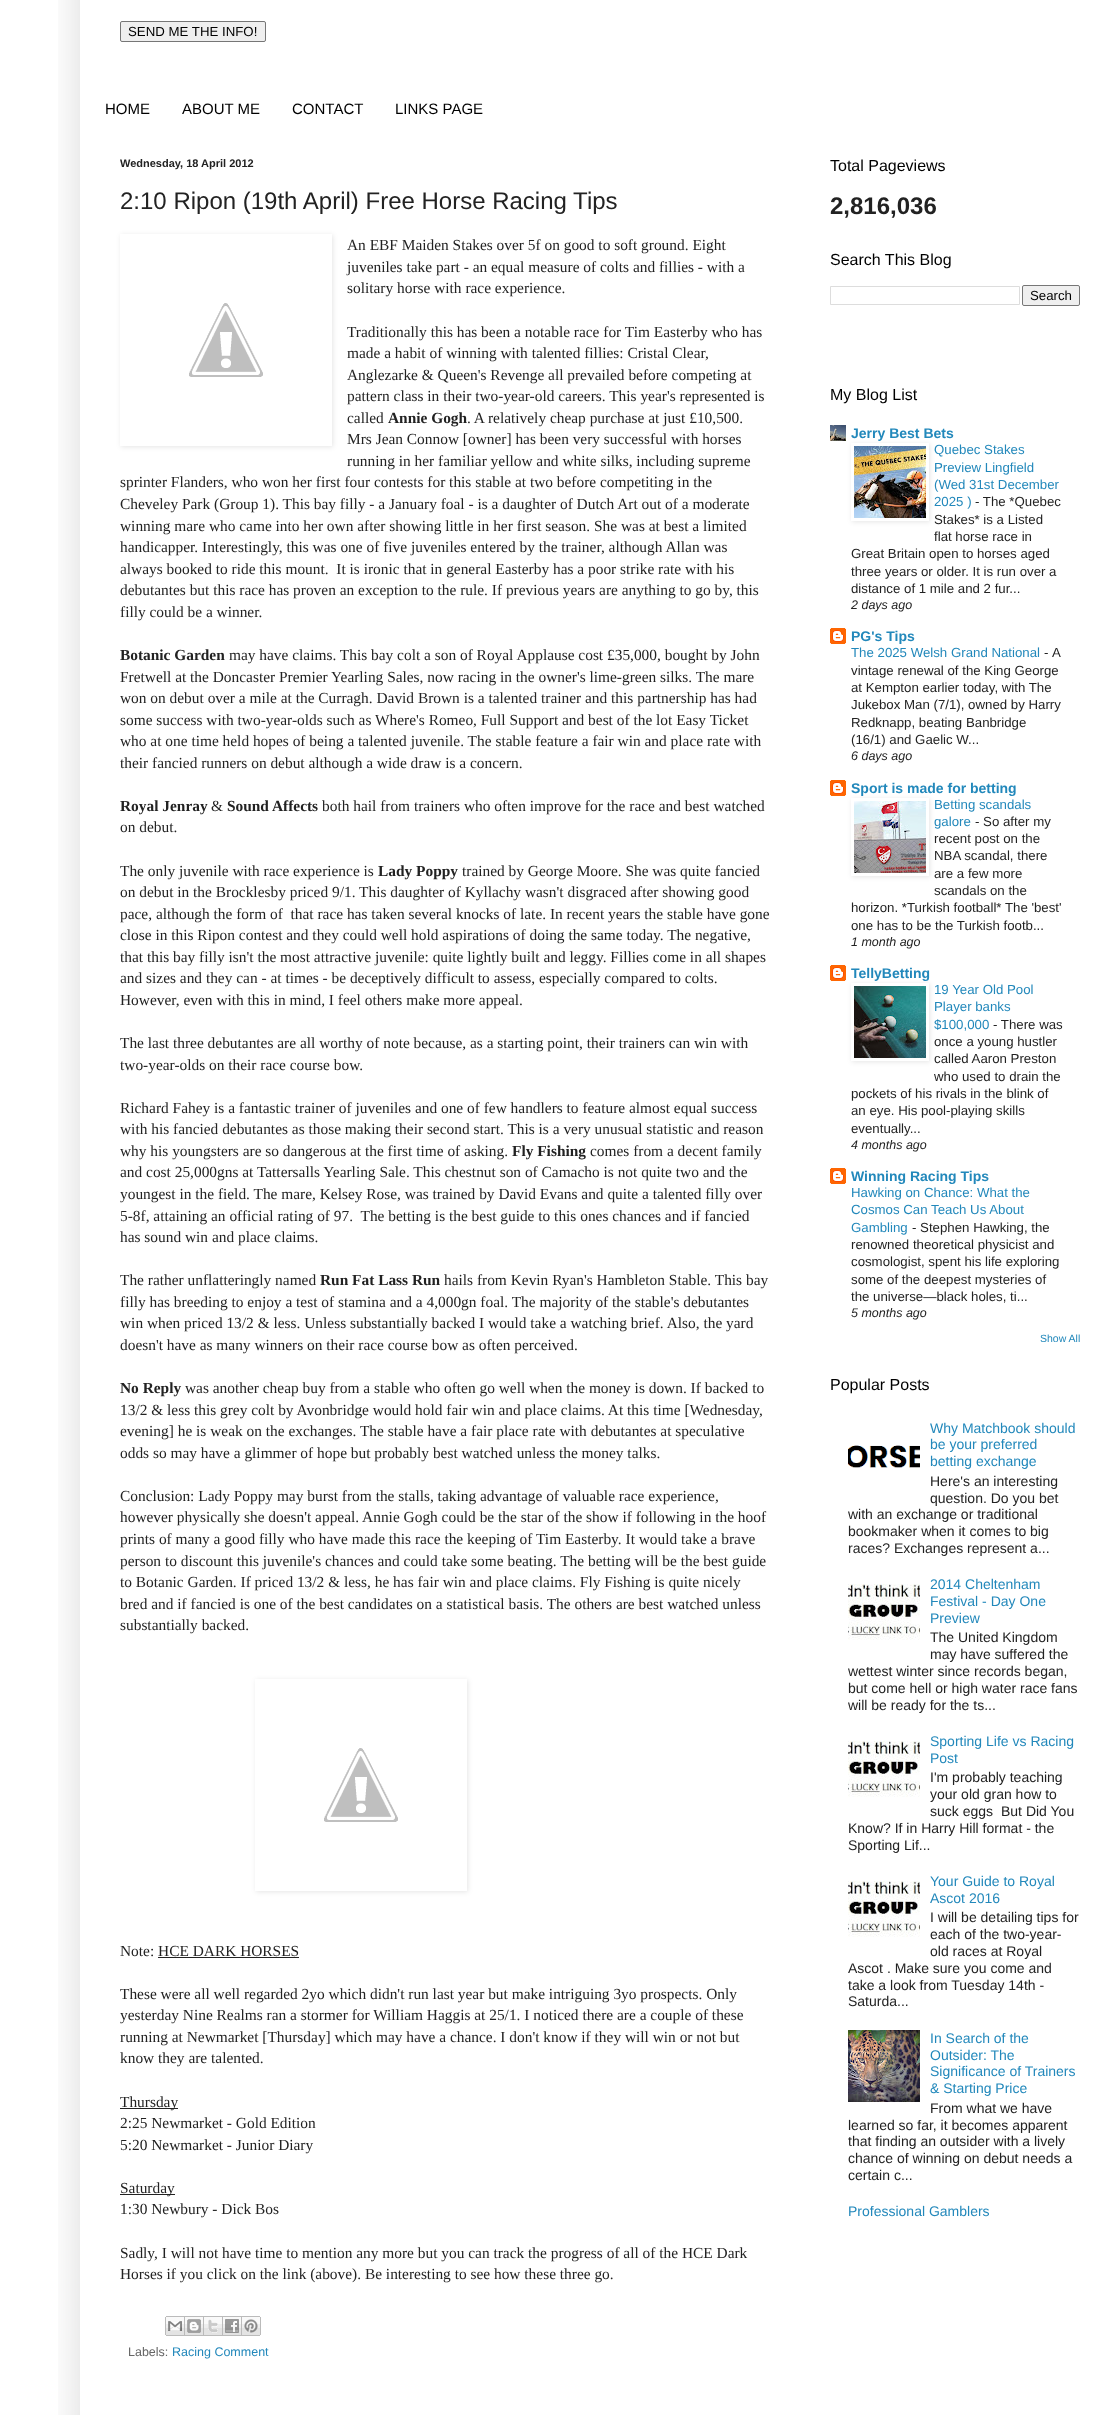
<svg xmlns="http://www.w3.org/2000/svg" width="1120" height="2415">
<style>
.a{font:13.25px Liberation Sans;fill:#000}
.b{font:15px Liberation Sans;fill:#000}
.c{font:bold 11px Liberation Sans;fill:#222}
.d{font:24px Liberation Sans;fill:#222}
.e{font:15.4px Liberation Serif;fill:#222}
.f{font:bold 15.4px Liberation Serif;fill:#222}
.g{font:12.5px Liberation Sans;fill:#666}
.h{font:12.5px Liberation Sans;fill:#28b}
.i{font:16px Liberation Sans;fill:#000}
.j{font:bold 24px Liberation Sans;fill:#222}
.k{font:bold 14px Liberation Sans;fill:#28b}
.l{font:13.25px Liberation Sans;fill:#28b}
.m{font:13.25px Liberation Sans;fill:#222}
.n{font:italic 12.5px Liberation Sans;fill:#222}
.o{font:10.5px Liberation Sans;fill:#28b}
.p{font:14px Liberation Sans;fill:#28b}
.q{font:14px Liberation Sans;fill:#222}
</style>
<defs>
<clipPath id="clip1"><path d="M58 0h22v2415H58z"/></clipPath>
<clipPath id="clip2"><path d="M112 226h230v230h-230zm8 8h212v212h-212z" clip-rule="evenodd"/></clipPath>
<clipPath id="clip3"><path d="M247 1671h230v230h-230zm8 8h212v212h-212z" clip-rule="evenodd"/></clipPath>
<clipPath id="clip4"><path d="M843 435h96v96h-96zm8 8h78v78h-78z" clip-rule="evenodd"/></clipPath>
<clipPath id="clip5"><path d="M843 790h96v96h-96zm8 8h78v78h-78z" clip-rule="evenodd"/></clipPath>
<clipPath id="clip6"><path d="M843 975h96v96h-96zm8 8h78v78h-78z" clip-rule="evenodd"/></clipPath>
</defs>
<rect width="100%" height="100%" fill="#fff"/>
<g clip-path="url(#clip1)">
<path fill="#00000026" filter="blur(20px)" d="M80 -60h1040v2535H80z"/>
</g>
<rect fill="#efefef" stroke="#767676" x="120.5" y="21.5" width="145" height="20" rx="1.5"/>
<g clip-path="url(#clip2)">
<path fill="#0000001a" filter="blur(2.5px)" d="M121 235h212v212H121z"/>
</g>
<image href="1.png" x="189" y="303" width="74" height="74"/>
<g clip-path="url(#clip3)">
<path fill="#0000001a" filter="blur(2.5px)" d="M256 1680h212v212H256z"/>
</g>
<image href="1.png" x="324" y="1748" width="74" height="74"/>
<path fill="#222" d="M158 1957h141v1H158z"/>
<path fill="#222" d="M120 2108h58v1H120z"/>
<path fill="#222" d="M120 2194h55v1H120z"/>
<image href="2.png" x="165" y="2316" width="20" height="20"/>
<image href="3.png" x="185" y="2316" width="19" height="20"/>
<image href="4.png" x="204" y="2316" width="19" height="20"/>
<image href="5.png" x="223" y="2316" width="19" height="20"/>
<image href="6.png" x="242" y="2316" width="19" height="20"/>
<path fill="none" stroke="#ddd" d="M830.5 286.5h189v18H830.5z"/>
<rect fill="#efefef" stroke="#767676" x="1022.5" y="285.5" width="57" height="20" rx="1.5"/>
<image href="7.png" x="830" y="425" width="16" height="16"/>
<g clip-path="url(#clip4)">
<path fill="#0000001a" filter="blur(2.5px)" d="M852 444h78v78H852z"/>
</g>
<image href="8.png" x="854" y="446" width="72" height="72"/>
<image href="9.png" x="830" y="628" width="16" height="16"/>
<image href="9.png" x="830" y="780" width="16" height="16"/>
<g clip-path="url(#clip5)">
<path fill="#0000001a" filter="blur(2.5px)" d="M852 799h78v78H852z"/>
</g>
<image href="10.png" x="854" y="801" width="72" height="72"/>
<image href="9.png" x="830" y="965" width="16" height="16"/>
<g clip-path="url(#clip6)">
<path fill="#0000001a" filter="blur(2.5px)" d="M852 984h78v78H852z"/>
</g>
<image href="11.png" x="854" y="986" width="72" height="72"/>
<image href="9.png" x="830" y="1168" width="16" height="16"/>
<image href="12.png" x="848" y="1445" width="72" height="23"/>
<image href="13.png" x="848" y="1584" width="72" height="56"/>
<image href="13.png" x="848" y="1741" width="72" height="56"/>
<image href="13.png" x="848" y="1881" width="72" height="56"/>
<image href="14.png" x="848" y="2030" width="72" height="72"/>
<text class="a" x="128" y="36">SEND ME THE INFO!</text>
<text class="b" x="105" y="114">HOME</text>
<text class="b" x="182" y="114">ABOUT ME</text>
<text class="b" x="292" y="114">CONTACT</text>
<text class="b" x="395" y="114">LINKS PAGE</text>
<text class="c" x="120" y="167">Wednesday, 18 April 2012</text>
<text class="d" x="120" y="209">2:10 Ripon (19th April) Free Horse Racing Tips</text>
<text class="e" x="347" y="250">An EBF Maiden Stakes over 5f on good to soft ground. Eight</text>
<text class="e" x="347" y="272">juveniles take part - an equal measure of colts and fillies - with a</text>
<text class="e" x="347" y="293">solitary horse with race experience.</text>
<text class="e" x="347" y="337">Traditionally this has been a notable race for Tim Easterby who has</text>
<text class="e" x="347" y="358">made a habit of winning with talented fillies: Cristal Clear,</text>
<text class="e" x="347" y="380">Anglezarke &amp; Queen's Revenge all prevailed before competing at</text>
<text class="e" x="347" y="401">pattern class in their two-year-old careers. This year's represented is</text>
<text class="e" x="347" y="423">called</text>
<text class="f" x="388" y="423">Annie Gogh</text>
<text class="e" x="467" y="423">. A relatively cheap purchase at just £10,500.</text>
<text class="e" x="347" y="444">Mrs Jean Connow [owner] has been very successful with horses</text>
<text class="e" x="347" y="466">running in her familiar yellow and white silks, including supreme</text>
<text class="e" x="120" y="487">sprinter Flanders, who won her first four contests for this stable at two before competiting in the</text>
<text class="e" x="120" y="509">Cheveley Park (Group 1). This bay filly - a January foal - is a daughter of Dutch Art out of a moderate</text>
<text class="e" x="120" y="531">winning mare who came into her own after showing little in her first season. She was at best a limited</text>
<text class="e" x="120" y="552">handicapper. Interestingly, this was one of five juveniles entered by the trainer, although Allan was</text>
<text class="e" xml:space="preserve" x="120" y="574">always booked to ride this mount.  It is ironic that in general Easterby has a poor strike rate with his</text>
<text class="e" x="120" y="595">debutantes but this race has proven an exception to the rule. If previous years are anything to go by, this</text>
<text class="e" x="120" y="617">filly could be a winner.</text>
<text class="f" x="120" y="660">Botanic Garden</text>
<text class="e" x="229" y="660">may have claims. This bay colt a son of Royal Applause cost £35,000, bought by John</text>
<text class="e" x="120" y="682">Fretwell at the Doncaster Premier Yearling Sales, now racing in the owner's lime-green silks. The mare</text>
<text class="e" x="120" y="703">won on debut over a mile at the Curragh. David Brown is a talented trainer and this partnership has had</text>
<text class="e" x="120" y="725">some success with two-year-olds such as Where's Romeo, Full Support and best of the lot Easy Ticket</text>
<text class="e" x="120" y="746">who at one time held hopes of being a talented juvenile. The stable feature a fair win and place rate with</text>
<text class="e" x="120" y="768">their fancied runners on debut although a wide draw is a concern.</text>
<text class="f" x="120" y="811">Royal Jenray</text>
<text class="e" x="211" y="811">&amp;</text>
<text class="f" x="227" y="811">Sound Affects</text>
<text class="e" x="322" y="811">both hail from trainers who often improve for the race and best watched</text>
<text class="e" x="120" y="832">on debut.</text>
<text class="e" x="120" y="876">The only juvenile with race experience is</text>
<text class="f" x="378" y="876">Lady Poppy</text>
<text class="e" x="462" y="876">trained by George Moore. She was quite fancied</text>
<text class="e" x="120" y="897">on debut in the Brocklesby priced 9/1. This daughter of Kyllachy wasn't disgraced after showing good</text>
<text class="e" xml:space="preserve" x="120" y="919">pace, although the form of  that race has taken several knocks of late. In recent years the stable have gone</text>
<text class="e" x="120" y="940">close in this Ripon contest and they could well hold aspirations of doing the same today. The negative,</text>
<text class="e" x="120" y="962">that this bay filly isn't the most attractive juvenile: quite lightly built and leggy. Fillies come in all shapes</text>
<text class="e" x="120" y="983">and sizes and they can - at times - be deceptively difficult to assess, especially compared to colts.</text>
<text class="e" x="120" y="1005">However, even with this in mind, I feel others make more appeal.</text>
<text class="e" x="120" y="1048">The last three debutantes are all worthy of note because, as a starting point, their trainers can win with</text>
<text class="e" x="120" y="1070">two-year-olds on their race course bow.</text>
<text class="e" x="120" y="1113">Richard Fahey is a fantastic trainer of juveniles and one of few handlers to feature almost equal success</text>
<text class="e" x="120" y="1134">with his fancied debutantes as those making their second start. This is a very unusual statistic and reason</text>
<text class="e" x="120" y="1156">why his youngsters are so dangerous at the first time of asking.</text>
<text class="f" x="512" y="1156">Fly Fishing</text>
<text class="e" x="590" y="1156">comes from a decent family</text>
<text class="e" x="120" y="1177">and cost 25,000gns at Tattersalls Yearling Sale. This chestnut son of Camacho is not quite two and the</text>
<text class="e" x="120" y="1199">youngest in the field. The mare, Kelsey Rose, was trained by David Evans and quite a talented filly over</text>
<text class="e" xml:space="preserve" x="120" y="1221">5-8f, attaining an official rating of 97.  The betting is the best guide to this ones chances and if fancied</text>
<text class="e" x="120" y="1242">has sound win and place claims.</text>
<text class="e" x="120" y="1285">The rather unflatteringly named</text>
<text class="f" x="320" y="1285">Run Fat Lass Run</text>
<text class="e" x="444" y="1285">hails from Kevin Ryan's Hambleton Stable. This bay</text>
<text class="e" x="120" y="1307">filly has breeding to enjoy a test of stamina and a 4,000gn foal. The majority of the stable's debutantes</text>
<text class="e" x="120" y="1328">win when priced 13/2 &amp; less. Unless substantially backed I would take a watching brief. Also, the yard</text>
<text class="e" x="120" y="1350">doesn't have as many winners on their race course bow as often perceived.</text>
<text class="f" x="120" y="1393">No Reply</text>
<text class="e" x="185" y="1393">was another cheap buy from a stable who often go well when the money is down. If backed to</text>
<text class="e" x="120" y="1415">13/2 &amp; less this grey colt by Avonbridge would hold fair win and place claims. At this time [Wednesday,</text>
<text class="e" x="120" y="1436">evening] he is weak on the exchanges. The stable have a fair place rate with debutantes at speculative</text>
<text class="e" x="120" y="1458">odds so may have a glimmer of hope but probably best watched unless the money talks.</text>
<text class="e" x="120" y="1501">Conclusion: Lady Poppy may burst from the stalls, taking advantage of valuable race experience,</text>
<text class="e" x="120" y="1522">however physically she doesn't appeal. Annie Gogh could be the star of the show if following in the hoof</text>
<text class="e" x="120" y="1544">prints of many a good filly who have made this race the keeping of Tim Easterby. It would take a brave</text>
<text class="e" x="120" y="1566">person to discount this juvenile's chances and could take some beating. The betting will be the best guide</text>
<text class="e" x="120" y="1587">to Botanic Garden. If priced 13/2 &amp; less, he has fair win and place claims. Fly Fishing is quite nicely</text>
<text class="e" x="120" y="1609">bred and if fancied is one of the best candidates on a statistical basis. The others are best watched unless</text>
<text class="e" x="120" y="1630">substantially backed.</text>
<text class="e" x="120" y="1956">Note: HCE DARK HORSES</text>
<text class="e" x="120" y="1999">These were all well regarded 2yo which didn't run last year but make intriguing 3yo prospects. Only</text>
<text class="e" x="120" y="2020">yesterday Nine Realms ran a stormer for William Haggis at 25/1. I noticed there are a couple of these</text>
<text class="e" x="120" y="2042">running at Newmarket [Thursday] which may have a chance. I don't know if they will win or not but</text>
<text class="e" x="120" y="2063">know they are talented.</text>
<text class="e" x="120" y="2107">Thursday</text>
<text class="e" x="120" y="2128">2:25 Newmarket - Gold Edition</text>
<text class="e" x="120" y="2150">5:20 Newmarket - Junior Diary</text>
<text class="e" x="120" y="2193">Saturday</text>
<text class="e" x="120" y="2214">1:30 Newbury - Dick Bos</text>
<text class="e" x="120" y="2258">Sadly, I will not have time to mention any more but you can track the progress of all of the HCE Dark</text>
<text class="e" x="120" y="2279">Horses if you click on the link (above). Be interesting to see how these three go.</text>
<text class="g" x="128" y="2356">Labels:</text>
<text class="h" x="172" y="2356">Racing Comment</text>
<text class="i" x="830" y="171">Total Pageviews</text>
<text class="j" x="830" y="214">2,816,036</text>
<text class="i" x="830" y="265">Search This Blog</text>
<text class="a" x="1030" y="300">Search</text>
<text class="i" x="830" y="400">My Blog List</text>
<text class="k" x="851" y="438">Jerry Best Bets</text>
<text class="l" x="934" y="454">Quebec Stakes</text>
<text class="l" x="934" y="472">Preview Lingfield</text>
<text class="l" x="934" y="489">(Wed 31st December</text>
<text class="l" x="934" y="506">2025 )</text>
<text class="m" x="975" y="506">- The *Quebec</text>
<text class="m" x="934" y="524">Stakes* is a Listed</text>
<text class="m" x="934" y="541">flat horse race in</text>
<text class="m" x="851" y="558">Great Britain open to horses aged</text>
<text class="m" x="851" y="576">three years or older. It is run over a</text>
<text class="m" x="851" y="593">distance of 1 mile and 2 fur...</text>
<text class="n" x="851" y="609">2 days ago</text>
<text class="k" x="851" y="641">PG's Tips</text>
<text class="l" x="851" y="657">The 2025 Welsh Grand National</text>
<text class="m" x="1044" y="657">-</text>
<text class="m" x="1052" y="657">A</text>
<text class="m" x="851" y="675">vintage renewal of the King George</text>
<text class="m" x="851" y="692">at Kempton earlier today, with The</text>
<text class="m" x="851" y="709">Jukebox Man (7/1), owned by Harry</text>
<text class="m" x="851" y="727">Redknapp, beating Banbridge</text>
<text class="m" x="851" y="744">(16/1) and Gaelic W...</text>
<text class="n" x="851" y="760">6 days ago</text>
<text class="k" x="851" y="793">Sport is made for betting</text>
<text class="l" x="934" y="809">Betting scandals</text>
<text class="l" x="934" y="826">galore</text>
<text class="m" x="975" y="826">- So after my</text>
<text class="m" x="934" y="843">recent post on the</text>
<text class="m" x="934" y="860">NBA scandal, there</text>
<text class="m" x="934" y="878">are a few more</text>
<text class="m" x="934" y="895">scandals on the</text>
<text class="m" x="851" y="912">horizon. *Turkish football* The 'best'</text>
<text class="m" x="851" y="930">one has to be the Turkish footb...</text>
<text class="n" x="851" y="946">1 month ago</text>
<text class="k" x="851" y="978">TellyBetting</text>
<text class="l" x="934" y="994">19 Year Old Pool</text>
<text class="l" x="934" y="1011">Player banks</text>
<text class="l" x="934" y="1029">$100,000</text>
<text class="m" x="993" y="1029">- There was</text>
<text class="m" x="934" y="1046">once a young hustler</text>
<text class="m" x="934" y="1063">called Aaron Preston</text>
<text class="m" x="934" y="1081">who used to drain the</text>
<text class="m" x="851" y="1098">pockets of his rivals in the blink of</text>
<text class="m" x="851" y="1115">an eye. His pool-playing skills</text>
<text class="m" x="851" y="1133">eventually...</text>
<text class="n" x="851" y="1149">4 months ago</text>
<text class="k" x="851" y="1181">Winning Racing Tips</text>
<text class="l" x="851" y="1197">Hawking on Chance: What the</text>
<text class="l" x="851" y="1214">Cosmos Can Teach Us About</text>
<text class="l" x="851" y="1232">Gambling</text>
<text class="m" x="912" y="1232">- Stephen Hawking, the</text>
<text class="m" x="851" y="1249">renowned theoretical physicist and</text>
<text class="m" x="851" y="1266">cosmologist, spent his life exploring</text>
<text class="m" x="851" y="1284">some of the deepest mysteries of</text>
<text class="m" x="851" y="1301">the universe—black holes, ti...</text>
<text class="n" x="851" y="1317">5 months ago</text>
<text class="o" x="1040" y="1342">Show All</text>
<text class="i" x="830" y="1390">Popular Posts</text>
<text class="p" x="930" y="1433">Why Matchbook should</text>
<text class="p" x="930" y="1449">be your preferred</text>
<text class="p" x="930" y="1466">betting exchange</text>
<text class="q" x="930" y="1486">Here's an interesting</text>
<text class="q" x="930" y="1503">question. Do you bet</text>
<text class="q" x="848" y="1519">with an exchange or traditional</text>
<text class="q" x="848" y="1536">bookmaker when it comes to big</text>
<text class="q" x="848" y="1553">races? Exchanges represent a...</text>
<text class="p" x="930" y="1589">2014 Cheltenham</text>
<text class="p" x="930" y="1606">Festival - Day One</text>
<text class="p" x="930" y="1623">Preview</text>
<text class="q" x="930" y="1642">The United Kingdom</text>
<text class="q" x="930" y="1659">may have suffered the</text>
<text class="q" x="848" y="1676">wettest winter since records began,</text>
<text class="q" x="848" y="1693">but come hell or high water race fans</text>
<text class="q" x="848" y="1710">will be ready for the ts...</text>
<text class="p" x="930" y="1746">Sporting Life vs Racing</text>
<text class="p" x="930" y="1763">Post</text>
<text class="q" x="930" y="1782">I'm probably teaching</text>
<text class="q" x="930" y="1799">your old gran how to</text>
<text class="q" x="930" y="1816">suck eggs</text>
<text class="q" x="1001" y="1816">But Did You</text>
<text class="q" x="848" y="1833">Know? If in Harry Hill format - the</text>
<text class="q" x="848" y="1850">Sporting Lif...</text>
<text class="p" x="930" y="1886">Your Guide to Royal</text>
<text class="p" x="930" y="1903">Ascot 2016</text>
<text class="q" x="930" y="1922">I will be detailing tips for</text>
<text class="q" x="930" y="1939">each of the two-year-</text>
<text class="q" x="930" y="1956">old races at Royal</text>
<text class="q" x="848" y="1973">Ascot . Make sure you come and</text>
<text class="q" x="848" y="1990">take a look from Tuesday 14th -</text>
<text class="q" x="848" y="2006">Saturda...</text>
<text class="p" x="930" y="2043">In Search of the</text>
<text class="p" x="930" y="2060">Outsider: The</text>
<text class="p" x="930" y="2076">Significance of Trainers</text>
<text class="p" x="930" y="2093">&amp; Starting Price</text>
<text class="q" x="930" y="2113">From what we have</text>
<text class="q" x="848" y="2130">learned so far, it becomes apparent</text>
<text class="q" x="848" y="2146">that finding an outsider with a lively</text>
<text class="q" x="848" y="2163">chance of winning on debut needs a</text>
<text class="q" x="848" y="2180">certain c...</text>
<text class="p" x="848" y="2216">Professional Gamblers</text>
</svg>
